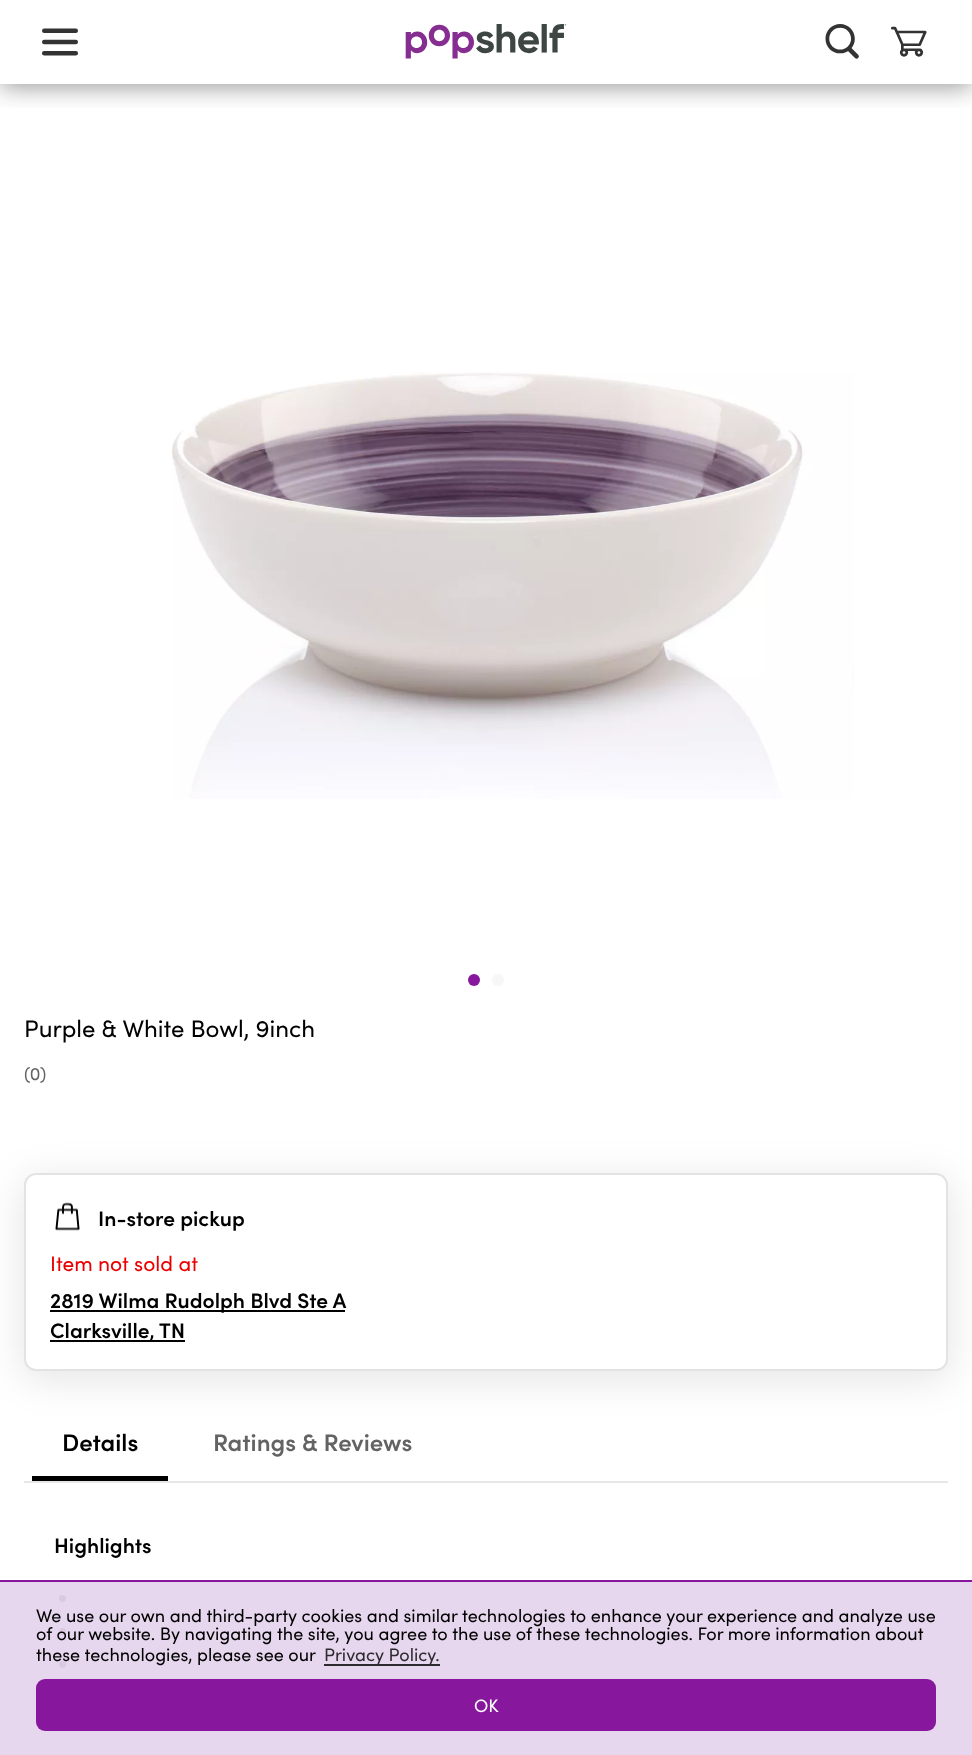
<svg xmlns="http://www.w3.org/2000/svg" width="972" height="1755">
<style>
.a{font:24px Sofia;fill:#000}
.b{font:18px Sofia;fill:#636363}
.c{font:600 21px Sofia;fill:#000}
.d{font:21px Sofia;fill:#eb0000}
.e{font:600 24px Sofia;fill:#000}
.f{font:600 24px Sofia;fill:#636363}
.g{font:18px Sofia;fill:#000}
.h{font:18px Sofia;fill:#2e2b30}
.i{font:18px Sofia;fill:#fff}
</style>
<defs>
<clipPath id="clip1"><path d="M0 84h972v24H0z"/></clipPath>
</defs>
<rect width="100%" height="100%" fill="#fff"/>
<path fill="#e6d6ee" d="M0 1582h972v173H0z"/>
<g clip-path="url(#clip1)">
<path fill="#32323280" filter="blur(12px)" d="M0 3h972v84H0z"/>
</g>
<image href="1.png" x="42" y="28" width="36" height="28"/>
<image href="2.png" x="405" y="24" width="162" height="35"/>
<image href="3.png" x="825" y="24" width="34" height="35"/>
<image href="4.png" x="891" y="26" width="36" height="31"/>
<image href="5.png" x="171" y="372" width="683" height="427"/>
<circle fill="#87189d" cx="474" cy="980" r="6"/>
<circle fill="#f7f7f7" cx="498" cy="980" r="6"/>
<rect fill="#0000001a" filter="blur(19px)" x="23" y="1179" width="927" height="201" rx="14"/>
<rect fill="#fff" stroke="#e3e3e3" stroke-width="2" x="25" y="1174" width="922" height="196" rx="11"/>
<image href="6.png" x="55" y="1202" width="25" height="29"/>
<path fill="#000" d="M50 1310h295v2H50z"/>
<path fill="#000" d="M50 1340h135v2H50z"/>
<path fill="#e7e7e7" d="M24 1481h924v2H24z"/>
<path fill="#000" d="M32 1476h136v5H32z"/>
<circle fill="#dac9e1" cx="62.5" cy="1598.5" r="3.5"/>
<circle fill="#dac9e1" cx="62.5" cy="1631.5" r="3.5"/>
<circle fill="#dac9e1" cx="62.5" cy="1664.5" r="3.5"/>
<path fill="#87189d" d="M0 1580h972v2H0z"/>
<path fill="#2e2b30" d="M324 1664h116v2H324z"/>
<rect fill="#87189d" x="36" y="1679" width="900" height="52" rx="9"/>
<text class="a" x="24" y="1037">Purple &amp; White Bowl, 9inch</text>
<text class="b" x="24" y="1080">(0)</text>
<text class="c" x="98" y="1226">In-store pickup</text>
<text class="d" x="50" y="1271">Item not sold at</text>
<text class="c" x="50" y="1308">2819 Wilma Rudolph Blvd Ste A</text>
<text class="c" x="50" y="1338">Clarksville,</text>
<text class="c" x="159" y="1338">TN</text>
<text class="e" x="62" y="1451">Details</text>
<text class="f" x="213" y="1451">Ratings &amp; Reviews</text>
<text class="c" x="54" y="1553">Highlights</text>
<text class="g" x="36" y="1622">We use our own and third-party cookies and similar technologies to enhance your experience and analyze use</text>
<text class="g" x="36" y="1640">of our website. By navigating the site, you agree to the use of these technologies. For more information about</text>
<text class="g" x="36" y="1661">these technologies, please see our</text>
<text class="h" x="324" y="1661">Privacy Policy.</text>
<text class="i" x="474" y="1712">OK</text>
</svg>
